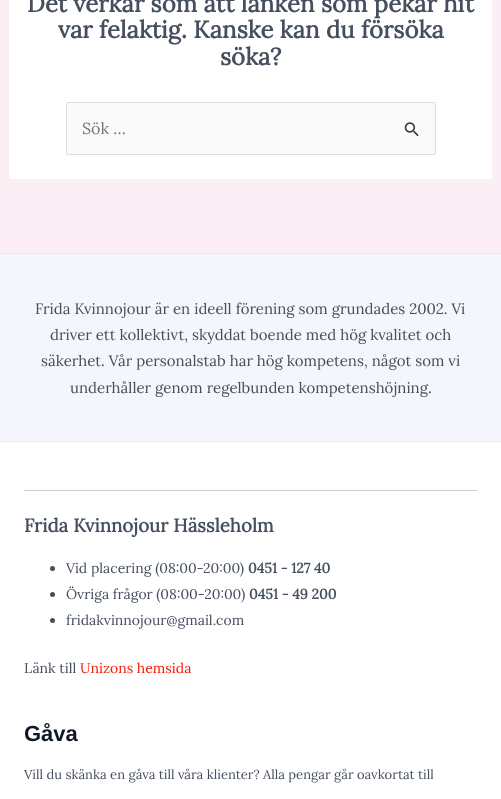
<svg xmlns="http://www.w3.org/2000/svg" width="501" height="799">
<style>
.a{font:bold 24px Lora;fill:#454f5e}
.b{font:16px Lora;fill:#757575}
.c{font:15px Lora;fill:#454f5e}
.d{font:bold 18.7px Lora;fill:#454f5e}
.e{font:14px Lora;fill:#454f5e}
.f{font:bold 14px Lora;fill:#454f5e}
.g{font:14px Lora;fill:#f41804}
.h{font:bold 22px Liberation Sans;fill:#0f172a}
.i{font:13px Lora;fill:#454f5e}
</style>
<rect width="100%" height="100%" fill="#fceef5"/>
<path fill="#fff" d="M9 0h483v179H9z"/>
<rect fill="#fafafa" stroke="#ddd" x="66.5" y="102.5" width="369" height="52" rx="1.5"/>
<image href="1.png" x="404" y="122" width="15" height="15"/>
<path fill="#fff" d="M0 442h501v357H0z"/>
<path fill="#f5f6fb" d="M0 254h501v187H0z"/>
<path fill="#eaeaea" d="M0 253h501v1H0z"/>
<path fill="#eaeaea" d="M0 441h501v1H0z"/>
<path fill="#ccc" d="M24 490h453v1H24z"/>
<circle fill="#454f5e" cx="52.5" cy="568.5" r="2.5"/>
<circle fill="#454f5e" cx="52.5" cy="594.5" r="2.5"/>
<circle fill="#454f5e" cx="52.5" cy="620.5" r="2.5"/>
<text class="a" x="27" y="12">Det verkar som att länken som pekar hit</text>
<text class="a" x="58" y="38">var felaktig. Kanske kan du försöka</text>
<text class="a" x="220" y="65">söka?</text>
<text class="b" x="82" y="134">Sök …</text>
<text class="c" x="35" y="314">Frida Kvinnojour är en ideell förening som grundades 2002. Vi</text>
<text class="c" x="50" y="340">driver ett kollektivt, skyddat boende med hög kvalitet och</text>
<text class="c" x="41" y="366">säkerhet. Vår personalstab har hög kompetens, något som vi</text>
<text class="c" x="70" y="393">underhåller genom regelbunden kompetenshöjning.</text>
<text class="d" x="24" y="532">Frida Kvinnojour Hässleholm</text>
<text class="e" x="66" y="573">Vid placering (08:00-20:00)</text>
<text class="f" x="248" y="573">0451 - 127 40</text>
<text class="e" x="66" y="599">Övriga frågor (08:00-20:00)</text>
<text class="f" x="249" y="599">0451 - 49 200</text>
<text class="e" x="66" y="625">fridakvinnojour@gmail.com</text>
<text class="e" x="24" y="673">Länk till</text>
<text class="g" x="80" y="673">Unizons hemsida</text>
<text class="h" x="24" y="741">Gåva</text>
<text class="i" x="24" y="779">Vill du skänka en gåva till våra klienter? Alla pengar går oavkortat till</text>
</svg>
